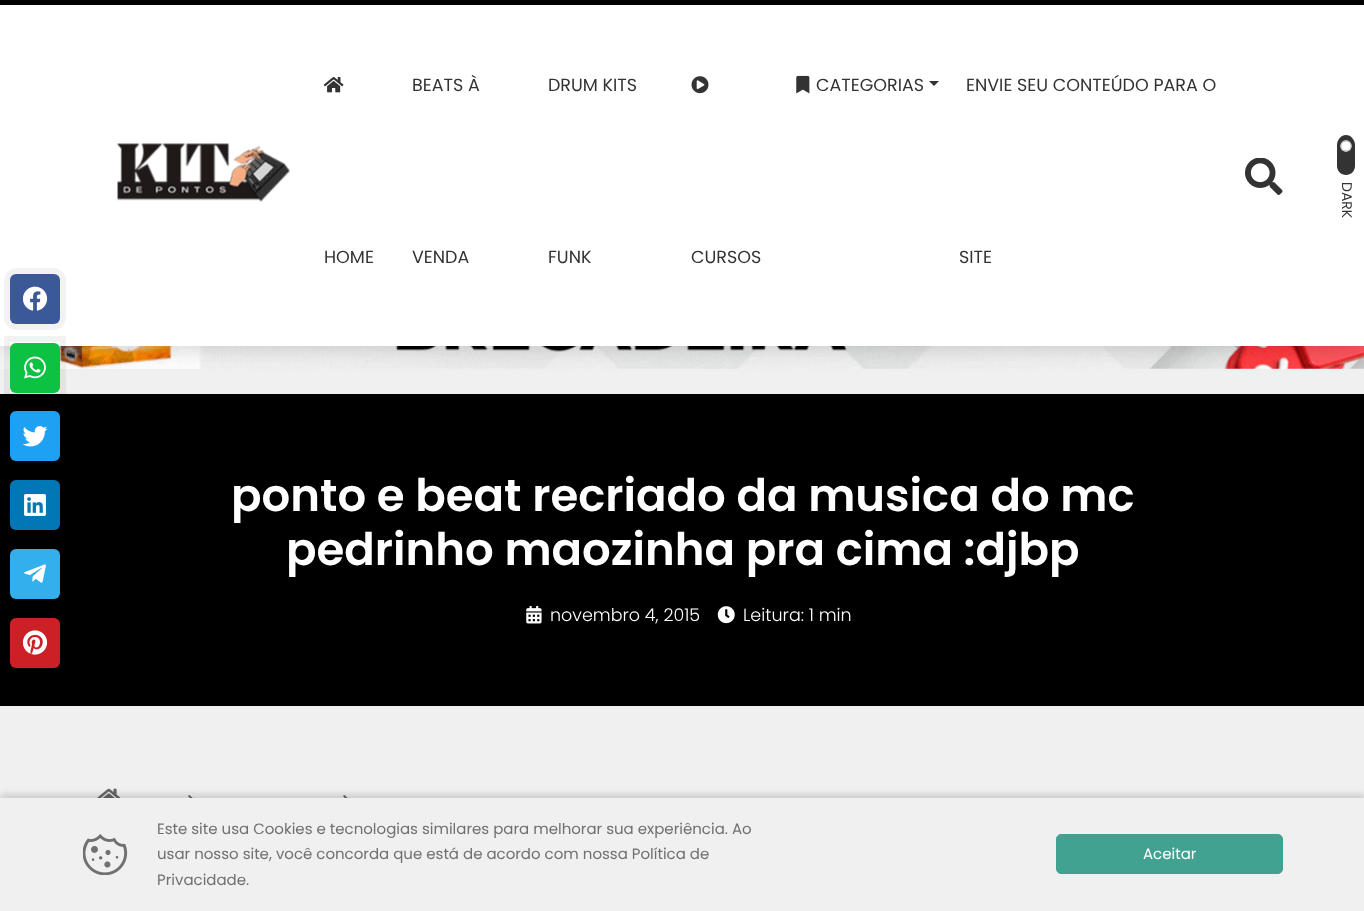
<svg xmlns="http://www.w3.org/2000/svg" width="1364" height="911">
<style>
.a{font:17.5px Poppins;fill:#333}
.b{font:14px Poppins;fill:#333}
.c{font:600 45px Poppins;fill:#fff}
.d{font:300 17.5px Poppins;fill:#fff}
.e{font:15px Poppins;fill:#707070}
.f{font:15px Poppins;fill:#fff}
</style>
<rect width="100%" height="100%" fill="#f0f0f0"/>
<image href="12.png" x="0" y="346" width="1364" height="23"/>
<path fill="#00000033" filter="blur(12.5px)" d="M0 0h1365v346H0z"/>
<path fill="#fff" d="M0 5h1364v341H0z"/>
<path fill="#000" d="M0 0h1364v5H0z"/>
<image href="1.png" x="117" y="143" width="174" height="59"/>
<image href="2.png" x="796" y="75" width="14" height="19"/>
<path fill="#333" d="M929 81h10l-5 5z"/>
<image href="3.png" x="323" y="77" width="21" height="16"/>
<image href="4.png" x="691" y="76" width="18" height="18"/>
<image href="5.png" x="1245" y="158" width="38" height="37"/>
<path fill="#333" d="M1355 145v21c0 5-4 9-9 9c-5 0-9-4-9-9v-21c0-5 4-10 9-10c5 0 9 5 9 10z"/>
<path fill="#fff" d="M1351.5 146c0 7.5-11 7.5-11 0c0-7.5 11-7.5 11 0z"/>
<path fill="none" stroke="#c8c3bc" stroke-width="1.2" d="M1351 146c0 6.5-10 6.5-10 0c0-6.5 10-6.5 10 0z"/>
<rect fill="none" stroke="#f2f2f2" stroke-width="6" x="7" y="271" width="56" height="56" rx="10"/>
<rect fill="#3b5998" x="10" y="274" width="50" height="50" rx="6"/>
<image href="6.png" x="23" y="286" width="25" height="25"/>
<path fill="#000" d="M0 394h1364v312H0z"/>
<path fill="none" stroke="#0000000d" stroke-width="6" d="M7 339h56v57H7z"/>
<rect fill="#0dc143" x="10" y="343" width="50" height="50" rx="6"/>
<image href="7.png" x="24" y="356" width="22" height="23"/>
<rect fill="#1ea1f3" x="10" y="411" width="50" height="50" rx="6"/>
<image href="8.png" x="23" y="426" width="25" height="21"/>
<rect fill="#0177b5" x="10" y="480" width="50" height="50" rx="6"/>
<image href="9.png" x="24" y="494" width="22" height="22"/>
<rect fill="#32afed" x="10" y="549" width="50" height="50" rx="6"/>
<image href="10.png" x="24" y="564" width="22" height="19"/>
<rect fill="#cb2026" x="10" y="618" width="50" height="50" rx="6"/>
<image href="11.png" x="23" y="630" width="25" height="25"/>
<image href="13.png" x="526" y="605" width="16" height="19"/>
<image href="14.png" x="717" y="606" width="18" height="18"/>
<image href="15.png" x="97" y="788" width="23" height="10"/>
<image href="16.png" x="188" y="795" width="5" height="3"/>
<image href="16.png" x="343" y="795" width="5" height="3"/>
<path fill="#00000024" filter="blur(3px)" d="M0 794h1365v114H0z"/>
<path fill="#f0f0f0" d="M0 798h1364v113H0z"/>
<image href="17.png" x="83" y="834" width="45" height="41"/>
<rect fill="#42a292" stroke="#42a292" x="1056.5" y="834.5" width="226" height="39" rx="4.5"/>
<text class="a" x="412" y="91">BEATS À</text>
<text class="a" x="412" y="263">VENDA</text>
<text class="a" x="548" y="91">DRUM KITS</text>
<text class="a" x="548" y="263">FUNK</text>
<text class="a" x="816" y="91">CATEGORIAS</text>
<text class="a" x="966" y="91">ENVIE SEU CONTEÚDO PARA O</text>
<text class="a" x="959" y="263">SITE</text>
<text class="a" x="324" y="263">HOME</text>
<text class="a" x="691" y="263">CURSOS</text>
<text class="b" x="1342" y="182" transform="rotate(90 1342 182)">DARK</text>
<text class="c" x="231" y="511">ponto e beat recriado da musica do mc</text>
<text class="c" x="286" y="565">pedrinho maozinha pra cima :djbp</text>
<text class="d" x="550" y="621">novembro 4, 2015</text>
<text class="d" x="743" y="621">Leitura: 1 min</text>
<text class="e" x="157" y="834">Este site usa Cookies e tecnologias similares para melhorar sua experiência. Ao</text>
<text class="e" x="157" y="859">usar nosso site, você concorda que está de acordo com nossa Política de</text>
<text class="e" x="157" y="885">Privacidade.</text>
<text class="f" x="1143" y="859">Aceitar</text>
</svg>
